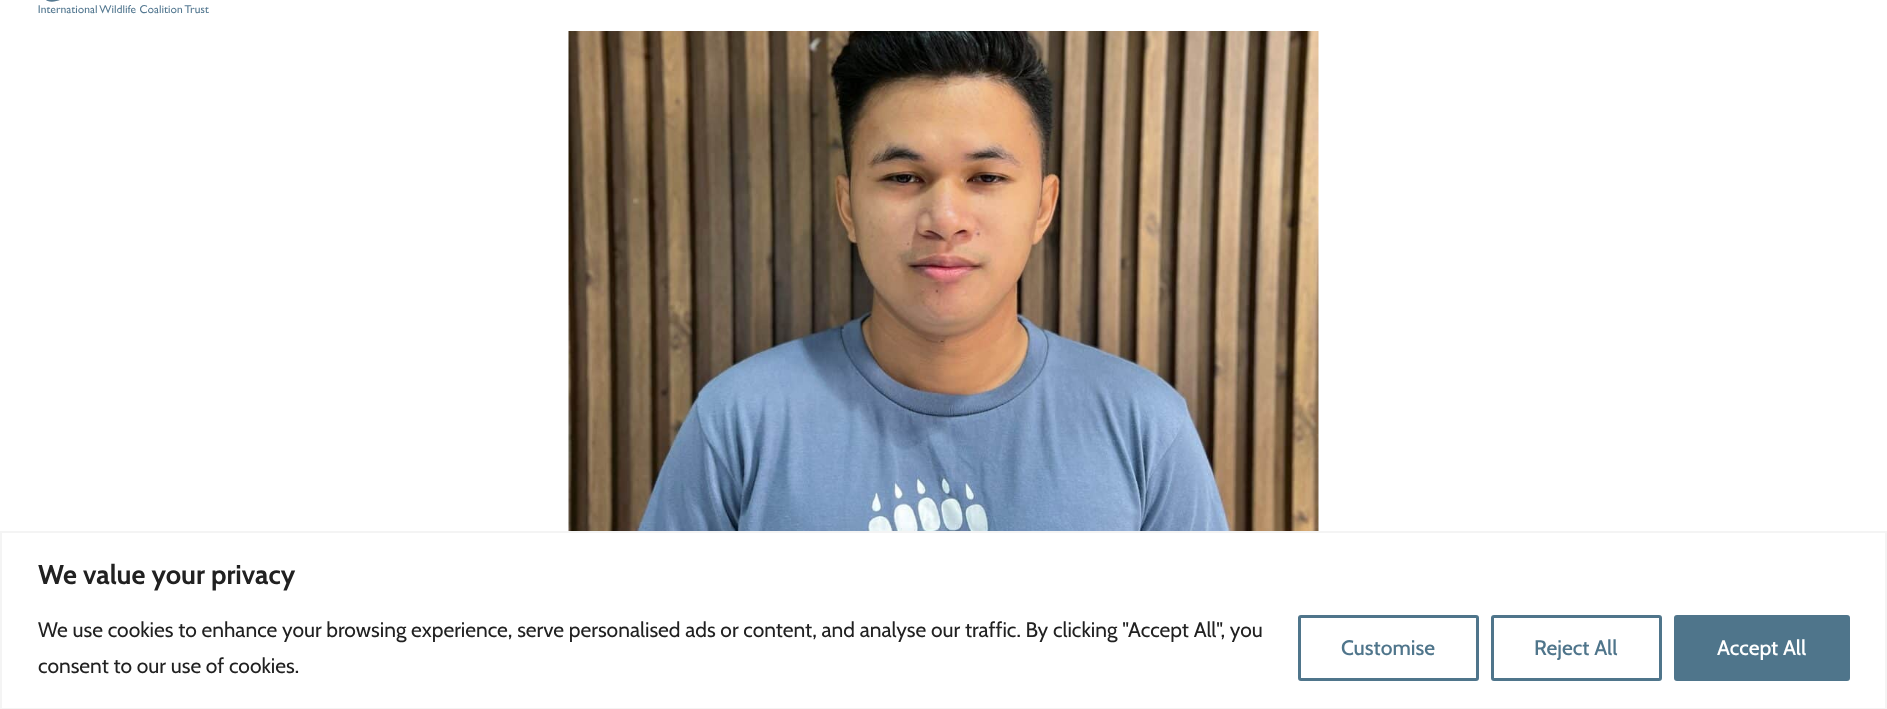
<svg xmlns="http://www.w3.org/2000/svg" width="1887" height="709">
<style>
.a{font:bold 27px Cabin;fill:#212121}
.b{font:21px Cabin;fill:#212121}
.c{font:500 21px Cabin;fill:#4f758b}
.d{font:500 21px Cabin;fill:#fff}
</style>
<rect width="100%" height="100%" fill="#fff"/>
<image href="1.png" x="38" y="0" width="171" height="14"/>
<image href="2.png" x="568" y="31" width="751" height="500"/>
<path fill="none" stroke="#f4f4f4" stroke-width="2" d="M1 532h1885v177H1z"/>
<rect fill="none" stroke="#4f758b" stroke-width="3" x="1299.5" y="616.5" width="178" height="63" rx="1.5"/>
<rect fill="none" stroke="#4f758b" stroke-width="3" x="1492.5" y="616.5" width="168" height="63" rx="1.5"/>
<rect fill="#4f758b" stroke="#4f758b" stroke-width="3" x="1675.5" y="616.5" width="173" height="63" rx="1.5"/>
<text class="a" x="38" y="584">We value your privacy</text>
<text class="b" x="38" y="637">We use cookies to enhance your browsing experience, serve personalised ads or content, and analyse our traffic. By clicking "Accept All", you</text>
<text class="b" x="38" y="673">consent to our use of cookies.</text>
<text class="c" x="1341" y="655">Customise</text>
<text class="c" x="1534" y="655">Reject All</text>
<text class="d" x="1717" y="655">Accept All</text>
</svg>
